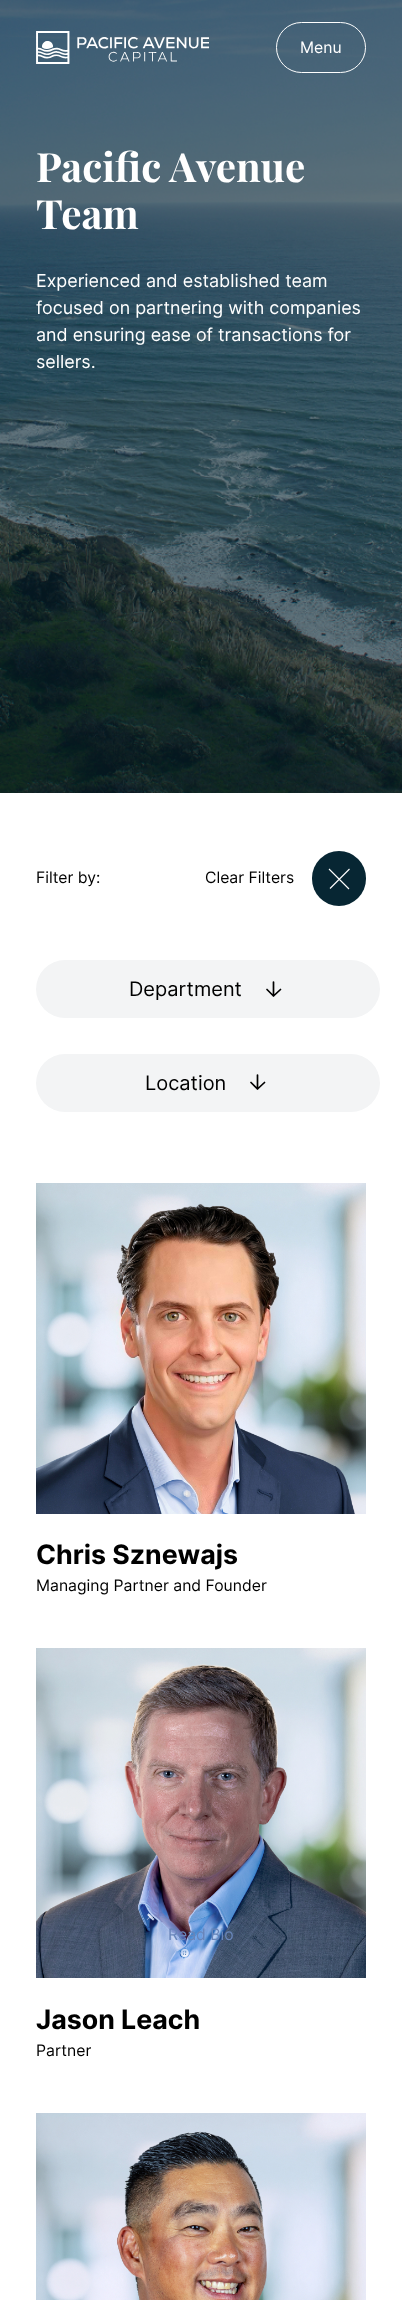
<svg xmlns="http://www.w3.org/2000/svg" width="402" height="2300">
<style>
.a{font:15.75px Inter;fill:#fff}
.b{font:bold 40.25px Playfair Display;fill:#fff}
.c{font:17.9px Inter;fill:#fff}
.d{font:15.75px Inter;fill:#000}
.e{font:20px Inter;fill:#000}
.f{font:bold 26.75px Inter;fill:#000}
.g{font:15.75px Inter;fill:#6885b9}
</style>
<rect width="100%" height="100%" fill="#fff"/>
<image href="2.png" x="0" y="0" width="402" height="793"/>
<image href="1.png" x="36" y="31" width="174" height="33"/>
<rect fill="none" stroke="#fff" x="276.5" y="22.5" width="89" height="50" rx="25"/>
<rect fill="#072633" x="312" y="851" width="54" height="55" rx="27"/>
<path fill="none" stroke="#fff" stroke-width="1.1" d="M329 869l20 20m-19-.5l19.5-19.5"/>
<rect fill="#f3f4f5" x="36" y="960" width="344" height="58" rx="29"/>
<path fill="none" stroke="#000" stroke-width="1.7" stroke-linecap="round" stroke-linejoin="round" d="M273.5 982v14m0 0l-6.5-6.5m6.5 6.5l7-6.5"/>
<rect fill="#f3f4f5" x="36" y="1054" width="344" height="58" rx="29"/>
<path fill="none" stroke="#000" stroke-width="1.7" stroke-linecap="round" stroke-linejoin="round" d="M257.5 1075v14m0 0l-6.5-6.5m6.5 6.5l7-6.5"/>
<image href="3.png" x="36" y="1183" width="330" height="331"/>
<image href="4.png" x="36" y="1648" width="330" height="330"/>
<image href="5.png" x="36" y="2113" width="330" height="187"/>
<text class="a" x="300" y="53">Menu</text>
<text class="b" x="36" y="182">Pacific Avenue</text>
<text class="b" x="36" y="229">Team</text>
<text class="c" x="36" y="287">Experienced and established team</text>
<text class="c" x="36" y="314">focused on partnering with companies</text>
<text class="c" x="36" y="341">and ensuring ease of transactions for</text>
<text class="c" x="36" y="368">sellers.</text>
<text class="d" x="36" y="883">Filter by:</text>
<text class="d" x="205" y="883">Clear Filters</text>
<text class="e" x="129" y="996">Department</text>
<text class="e" x="145" y="1090">Location</text>
<text class="f" x="36" y="1564">Chris Sznewajs</text>
<text class="d" x="36" y="1591">Managing Partner and Founder</text>
<text class="g" x="168" y="1940">Read Bio</text>
<text class="f" x="36" y="2029">Jason Leach</text>
<text class="d" x="36" y="2056">Partner</text>
</svg>
